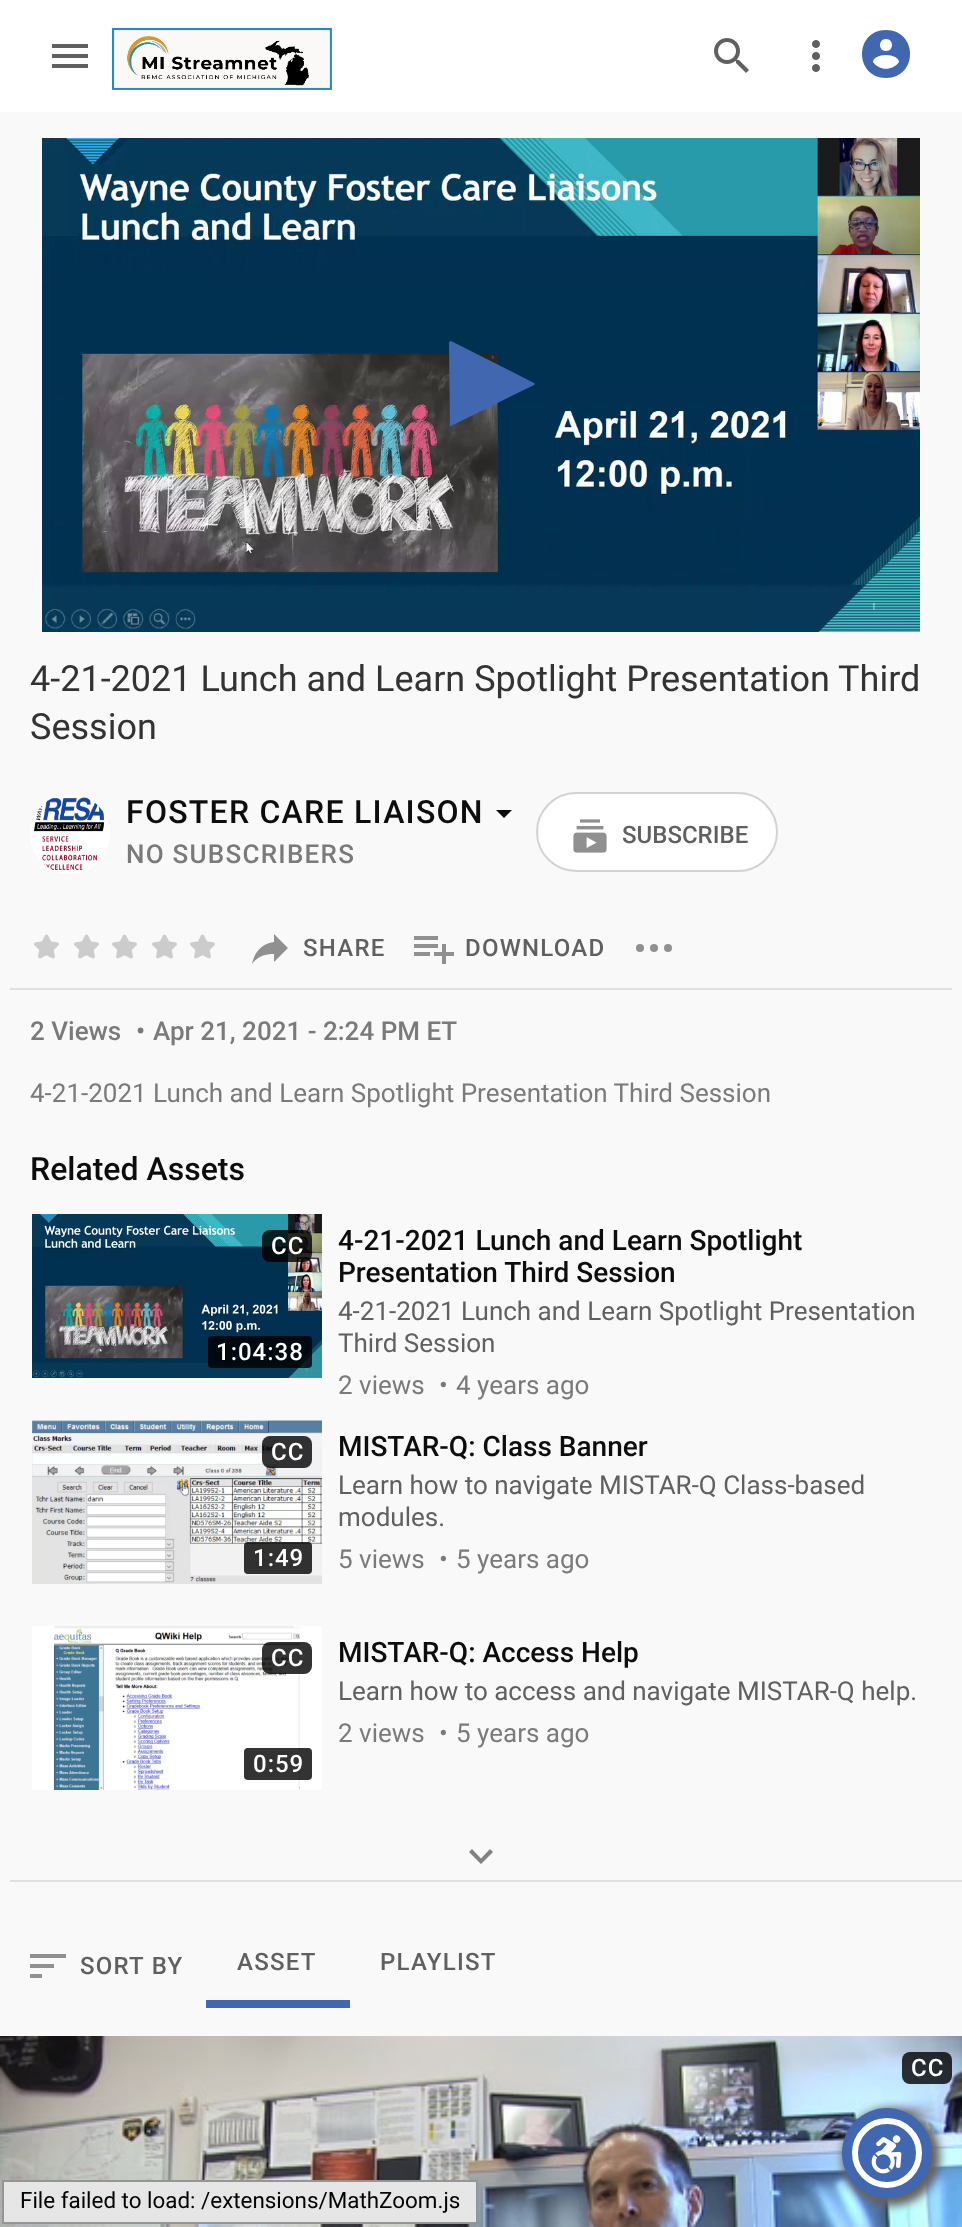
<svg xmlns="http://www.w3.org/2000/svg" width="962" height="2227">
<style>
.a{font:36px Roboto;fill:#333}
.b{font:500 32px Roboto;letter-spacing:1.25px;fill:#0d0d0d}
.c{font:500 26px Roboto;letter-spacing:1.25px;fill:#7a7a7a}
.d{font:500 24px Roboto;fill:#606060}
.e{font:500 24px Roboto;letter-spacing:1.25px;fill:#606060}
.f{font:500 26px Roboto;fill:#7a7a7a}
.g{font:26px Roboto;fill:#7a7a7a}
.h{font:500 32px Roboto;fill:#0d0d0d}
.i{font:500 24px Roboto;letter-spacing:1px;fill:#fff}
.j{font:500 28px Roboto;fill:#0d0d0d}
.k{font:26px Roboto;fill:#606060}
.l{font:22.4px Roboto;fill:#000}
</style>
<rect width="100%" height="100%" fill="#f9f9f9"/>
<path fill="#fff" d="M0 0h962v112H0z"/>
<path fill="#606060" d="M52 68h36v-4h-36zm0-10h36v-4h-36zm0-14v4h36v-4z"/>
<image href="1.png" x="112" y="27" width="220" height="63"/>
<image href="2.png" x="714" y="38" width="35" height="35"/>
<image href="3.png" x="812" y="40" width="8" height="32"/>
<path fill="#4167b0" d="M886 30c32 0 32 48 0 48c-32 0-32-48 0-48zm0 21c8 0 8-12 0-12c-8 0-8 12 0 12zm0 4c-7 0-13 3-13 7c6 9 20 9 26 0c0-4-6-7-13-7z"/>
<image href="4.png" x="42" y="138" width="878" height="494"/>
<path fill="#4167b0" d="M451 426c0 1-1 1-1 0l-1-84l2-1l83 42c1 0 1 1 0 2z"/>
<path fill="#e0e0e0" d="M10 988h942v2H10z"/>
<circle fill="#fff" cx="70" cy="834" r="40"/>
<image href="5.png" x="33" y="797" width="72" height="73"/>
<path fill="#0d0d0d" d="M496 810h16l-8 8z"/>
<rect fill="#fff" stroke="#d3d3d3" stroke-width="2" x="537" y="793" width="240" height="78" rx="39"/>
<image href="6.png" x="573" y="819" width="34" height="34"/>
<image href="7.png" x="34" y="934" width="25" height="25"/>
<image href="7.png" x="74" y="934" width="25" height="25"/>
<image href="7.png" x="112" y="934" width="25" height="25"/>
<image href="7.png" x="152" y="934" width="25" height="25"/>
<image href="7.png" x="190" y="934" width="25" height="25"/>
<path fill="#909090" d="M274 942v-8l14 14l-14 14v-8c-10 0-17 3-22 10c2-10 8-20 22-22z"/>
<image href="8.png" x="414" y="936" width="40" height="28"/>
<circle fill="#909090" cx="640" cy="948" r="4"/>
<circle fill="#909090" cx="654" cy="948" r="4"/>
<circle fill="#909090" cx="668" cy="948" r="4"/>
<image href="9.png" x="32" y="1214" width="290" height="164"/>
<rect fill="#000000cc" x="262" y="1230" width="50" height="32" rx="8"/>
<rect fill="#000000cc" x="208" y="1336" width="104" height="32" rx="4"/>
<image href="10.png" x="32" y="1420" width="290" height="164"/>
<rect fill="#000000cc" x="262" y="1436" width="50" height="32" rx="8"/>
<rect fill="#000000cc" x="244" y="1542" width="68" height="32" rx="4"/>
<path fill="#fff" d="M32 1626h290v164H32z"/>
<image href="11.png" x="54" y="1626" width="246" height="164"/>
<rect fill="#000000cc" x="262" y="1642" width="50" height="32" rx="8"/>
<rect fill="#000000cc" x="244" y="1748" width="68" height="32" rx="4"/>
<path fill="#818181" d="M490 1849l-9 9.5l-9-9.5l-3 3l12 12l12-12z"/>
<path fill="#e0e0e0" d="M10 1880h952v2H10z"/>
<path fill="#909090" d="M30 1978h12v-4h-12zm0-24v4h36v-4zm0 14h24v-4h-24z"/>
<path fill="#4167b0" d="M206 2000h144v8H206z"/>
<image href="12.png" x="0" y="2036" width="962" height="191"/>
<rect fill="#000000cc" x="902" y="2052" width="50" height="32" rx="8"/>
<path fill="#e6e6e6" stroke="#959595" stroke-width="2" d="M3 2181h474v42H3z"/>
<rect fill="#676161" filter="blur(4px)" x="842" y="2108" width="98" height="98" rx="49"/>
<circle fill="#4167b0" cx="887" cy="2153" r="45"/>
<circle fill="none" stroke="#fff" stroke-width="6" cx="887" cy="2153" r="32"/>
<image href="13.png" x="871" y="2135" width="31" height="39"/>
<text class="a" x="30" y="691">4-21-2021 Lunch and Learn Spotlight Presentation Third</text>
<text class="a" x="30" y="739">Session</text>
<text class="b" x="126" y="823">FOSTER CARE LIAISON</text>
<text class="c" x="126" y="863">NO SUBSCRIBERS</text>
<text class="d" x="622" y="843">SUBSCRIBE</text>
<text class="e" x="303" y="956">SHARE</text>
<text class="e" x="465" y="956">DOWNLOAD</text>
<text class="f" x="30" y="1040">2 Views</text>
<text class="f" x="136" y="1040">•</text>
<text class="f" x="153" y="1040">Apr 21, 2021 - 2:24 PM ET</text>
<text class="g" x="30" y="1102">4-21-2021 Lunch and Learn Spotlight Presentation Third Session</text>
<text class="h" x="30" y="1180">Related Assets</text>
<text class="i" x="271" y="1254">CC</text>
<text class="i" x="216" y="1360">1:04:38</text>
<text class="j" x="338" y="1250">4-21-2021 Lunch and Learn Spotlight</text>
<text class="j" x="338" y="1282">Presentation Third Session</text>
<text class="k" x="338" y="1320">4-21-2021 Lunch and Learn Spotlight Presentation</text>
<text class="k" x="338" y="1352">Third Session</text>
<text class="g" x="338" y="1394">2 views</text>
<text class="g" x="439" y="1394">•</text>
<text class="g" x="456" y="1394">4 years ago</text>
<text class="i" x="271" y="1460">CC</text>
<text class="i" x="253" y="1566">1:49</text>
<text class="j" x="338" y="1456">MISTAR-Q: Class Banner</text>
<text class="k" x="338" y="1494">Learn how to navigate MISTAR-Q Class-based</text>
<text class="k" x="338" y="1526">modules.</text>
<text class="g" x="338" y="1568">5 views</text>
<text class="g" x="439" y="1568">•</text>
<text class="g" x="456" y="1568">5 years ago</text>
<text class="i" x="271" y="1666">CC</text>
<text class="i" x="253" y="1772">0:59</text>
<text class="j" x="338" y="1662">MISTAR-Q: Access Help</text>
<text class="k" x="338" y="1700">Learn how to access and navigate MISTAR-Q help.</text>
<text class="g" x="338" y="1742">2 views</text>
<text class="g" x="439" y="1742">•</text>
<text class="g" x="456" y="1742">5 years ago</text>
<text class="e" x="80" y="1974">SORT BY</text>
<text class="e" x="237" y="1970">ASSET</text>
<text class="e" x="380" y="1970">PLAYLIST</text>
<text class="i" x="911" y="2076">CC</text>
<text class="l" x="20" y="2208">File failed to load: /extensions/MathZoom.js</text>
</svg>
